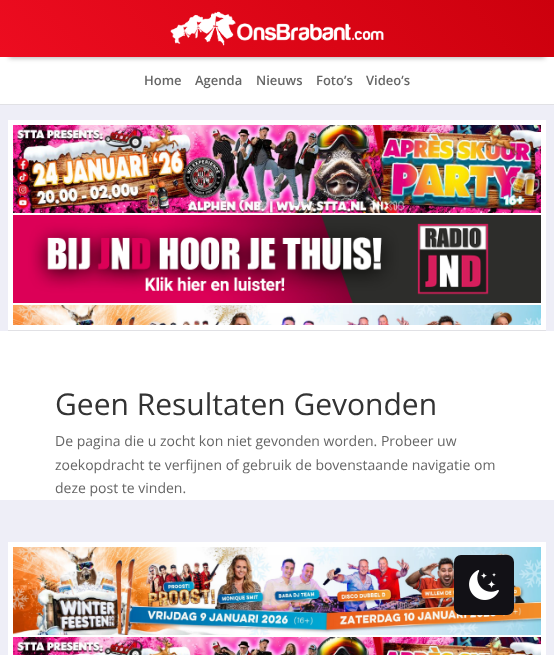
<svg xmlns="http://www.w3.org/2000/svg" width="554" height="655">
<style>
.a{font:600 13px Open Sans;fill:#666}
.b{font:30px Open Sans;fill:#333}
.c{font:14px Open Sans;fill:#666}
</style>
<defs>
<linearGradient id="g1" gradientUnits="userSpaceOnUse" x1="100" y1="177" x2="454" y2="-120"><stop offset="0" stop-color="#ed0c20"/><stop offset="1" stop-color="#cc000d"/></linearGradient>
</defs>
<rect width="100%" height="100%" fill="#eeeef7"/>
<path fill="#fff" d="M0 57h554v47H0z"/>
<path fill="#0000004d" filter="blur(2.5px)" d="M9 19h536v39H9z"/>
<path fill="url(#g1)" d="M0 0h554v57H0z"/>
<image href="1.png" x="170" y="11" width="214" height="35"/>
<path fill="#e1e1e5" d="M0 104h554v1H0z"/>
<path fill="#fff" d="M8 120h538v210H8z"/>
<path fill="#e1e1e5" d="M8 330h538v1H8z"/>
<image href="2.png" x="13" y="125" width="528" height="88"/>
<image href="3.png" x="13" y="215" width="528" height="88"/>
<image href="4.png" x="13" y="305" width="528" height="20"/>
<path fill="#fff" d="M0 331h554v169H0z"/>
<path fill="#fff" d="M8 542h538v113H8z"/>
<image href="5.png" x="13" y="547" width="528" height="88"/>
<image href="6.png" x="13" y="637" width="528" height="18"/>
<rect fill="#121116" x="454" y="555" width="60" height="60" rx="7"/>
<image href="7.png" x="469" y="570" width="30" height="30"/>
<text class="a" x="144" y="85">Home</text>
<text class="a" x="195" y="85">Agenda</text>
<text class="a" x="256" y="85">Nieuws</text>
<text class="a" x="316" y="85">Foto’s</text>
<text class="a" x="366" y="85">Video’s</text>
<text class="b" x="55" y="415">Geen Resultaten Gevonden</text>
<text class="c" x="55" y="446">De pagina die u zocht kon niet gevonden worden. Probeer uw</text>
<text class="c" x="55" y="470">zoekopdracht te verfijnen of gebruik de bovenstaande navigatie om</text>
<text class="c" x="55" y="493">deze post te vinden.</text>
</svg>
